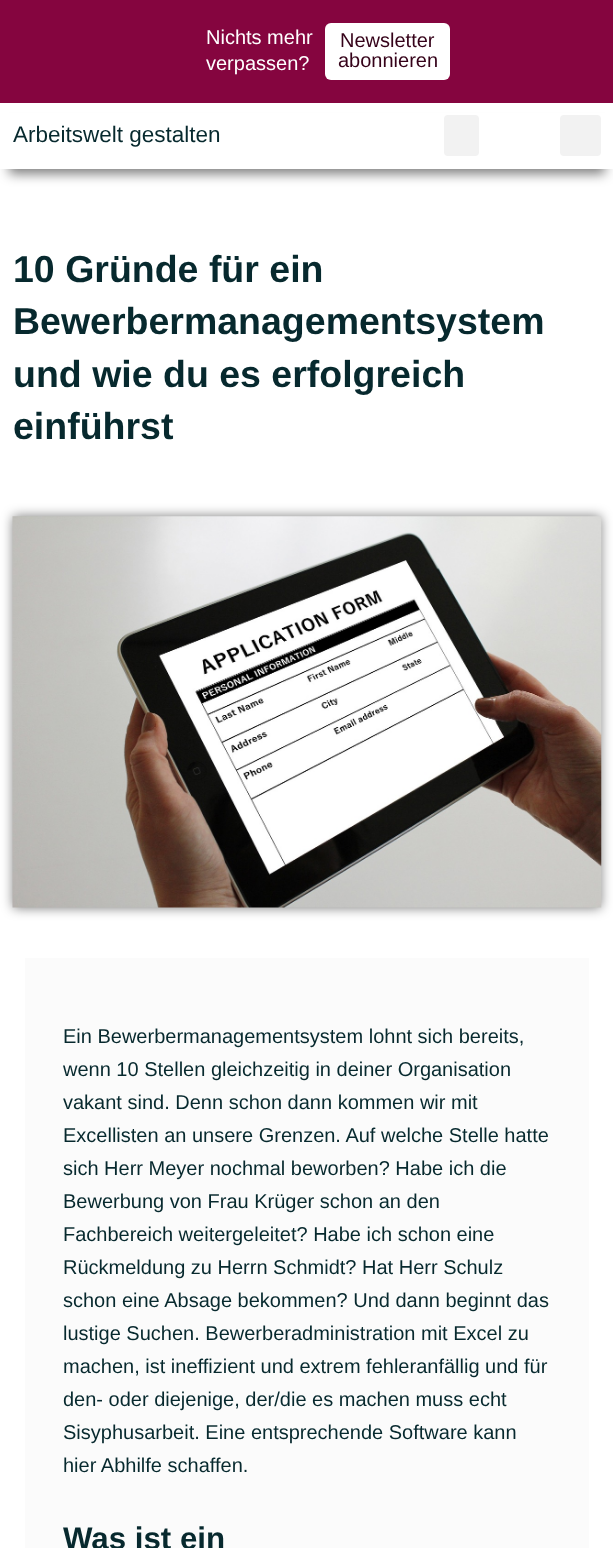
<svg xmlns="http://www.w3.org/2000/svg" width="613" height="1548">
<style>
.a{font:20px Liberation Sans;fill:#fff}
.b{font:20px Liberation Sans;fill:#350219}
.c{font:22.5px Liberation Sans;fill:#07292e}
.d{font:bold 37.5px Liberation Sans;fill:#07292e}
.e{font:20px Liberation Sans;fill:#07292e}
.f{font:bold 31.25px Liberation Sans;fill:#07292e}
</style>
<rect width="100%" height="100%" fill="#fff"/>
<path fill="#85053f" d="M0 0h613v103H0z"/>
<rect fill="#fff" x="325" y="23" width="125" height="57" rx="6"/>
<path fill="#00000080" filter="blur(6px)" d="M9 125h596v49H9z"/>
<path fill="#fff" d="M0 113h613v56H0z"/>
<rect fill="#f2f2f2" x="444" y="115" width="35" height="41" rx="4"/>
<rect fill="#f2f2f2" x="560" y="115" width="41" height="41" rx="4"/>
<path fill="#00000080" filter="blur(6px)" d="M13 516h588v392H13z"/>
<image href="1.png" x="12" y="516" width="590" height="392"/>
<path fill="#fbfbfb" d="M25 958h564v590H25z"/>
<text class="a" x="206" y="44">Nichts mehr</text>
<text class="a" x="206" y="70">verpassen?</text>
<text class="b" x="340" y="47">Newsletter</text>
<text class="b" x="338" y="67">abonnieren</text>
<text class="c" x="13" y="142">Arbeitswelt gestalten</text>
<text class="d" x="13" y="282">10 Gründe für ein</text>
<text class="d" x="13" y="334">Bewerbermanagementsystem</text>
<text class="d" x="13" y="387">und wie du es erfolgreich</text>
<text class="d" x="13" y="439">einführst</text>
<text class="e" x="63" y="1043">Ein Bewerbermanagementsystem lohnt sich bereits,</text>
<text class="e" x="63" y="1076">wenn 10 Stellen gleichzeitig in deiner Organisation</text>
<text class="e" x="63" y="1109">vakant sind. Denn schon dann kommen wir mit</text>
<text class="e" x="63" y="1142">Excellisten an unsere Grenzen. Auf welche Stelle hatte</text>
<text class="e" x="63" y="1175">sich Herr Meyer nochmal beworben? Habe ich die</text>
<text class="e" x="63" y="1208">Bewerbung von Frau Krüger schon an den</text>
<text class="e" x="63" y="1241">Fachbereich weitergeleitet? Habe ich schon eine</text>
<text class="e" x="63" y="1274">Rückmeldung zu Herrn Schmidt? Hat Herr Schulz</text>
<text class="e" x="63" y="1307">schon eine Absage bekommen? Und dann beginnt das</text>
<text class="e" x="63" y="1340">lustige Suchen. Bewerberadministration mit Excel zu</text>
<text class="e" x="63" y="1373">machen, ist ineffizient und extrem fehleranfällig und für</text>
<text class="e" x="63" y="1406">den- oder diejenige, der/die es machen muss echt</text>
<text class="e" x="63" y="1439">Sisyphusarbeit. Eine entsprechende Software kann</text>
<text class="e" x="63" y="1472">hier Abhilfe schaffen.</text>
<text class="f" x="63" y="1549">Was ist ein</text>
</svg>
